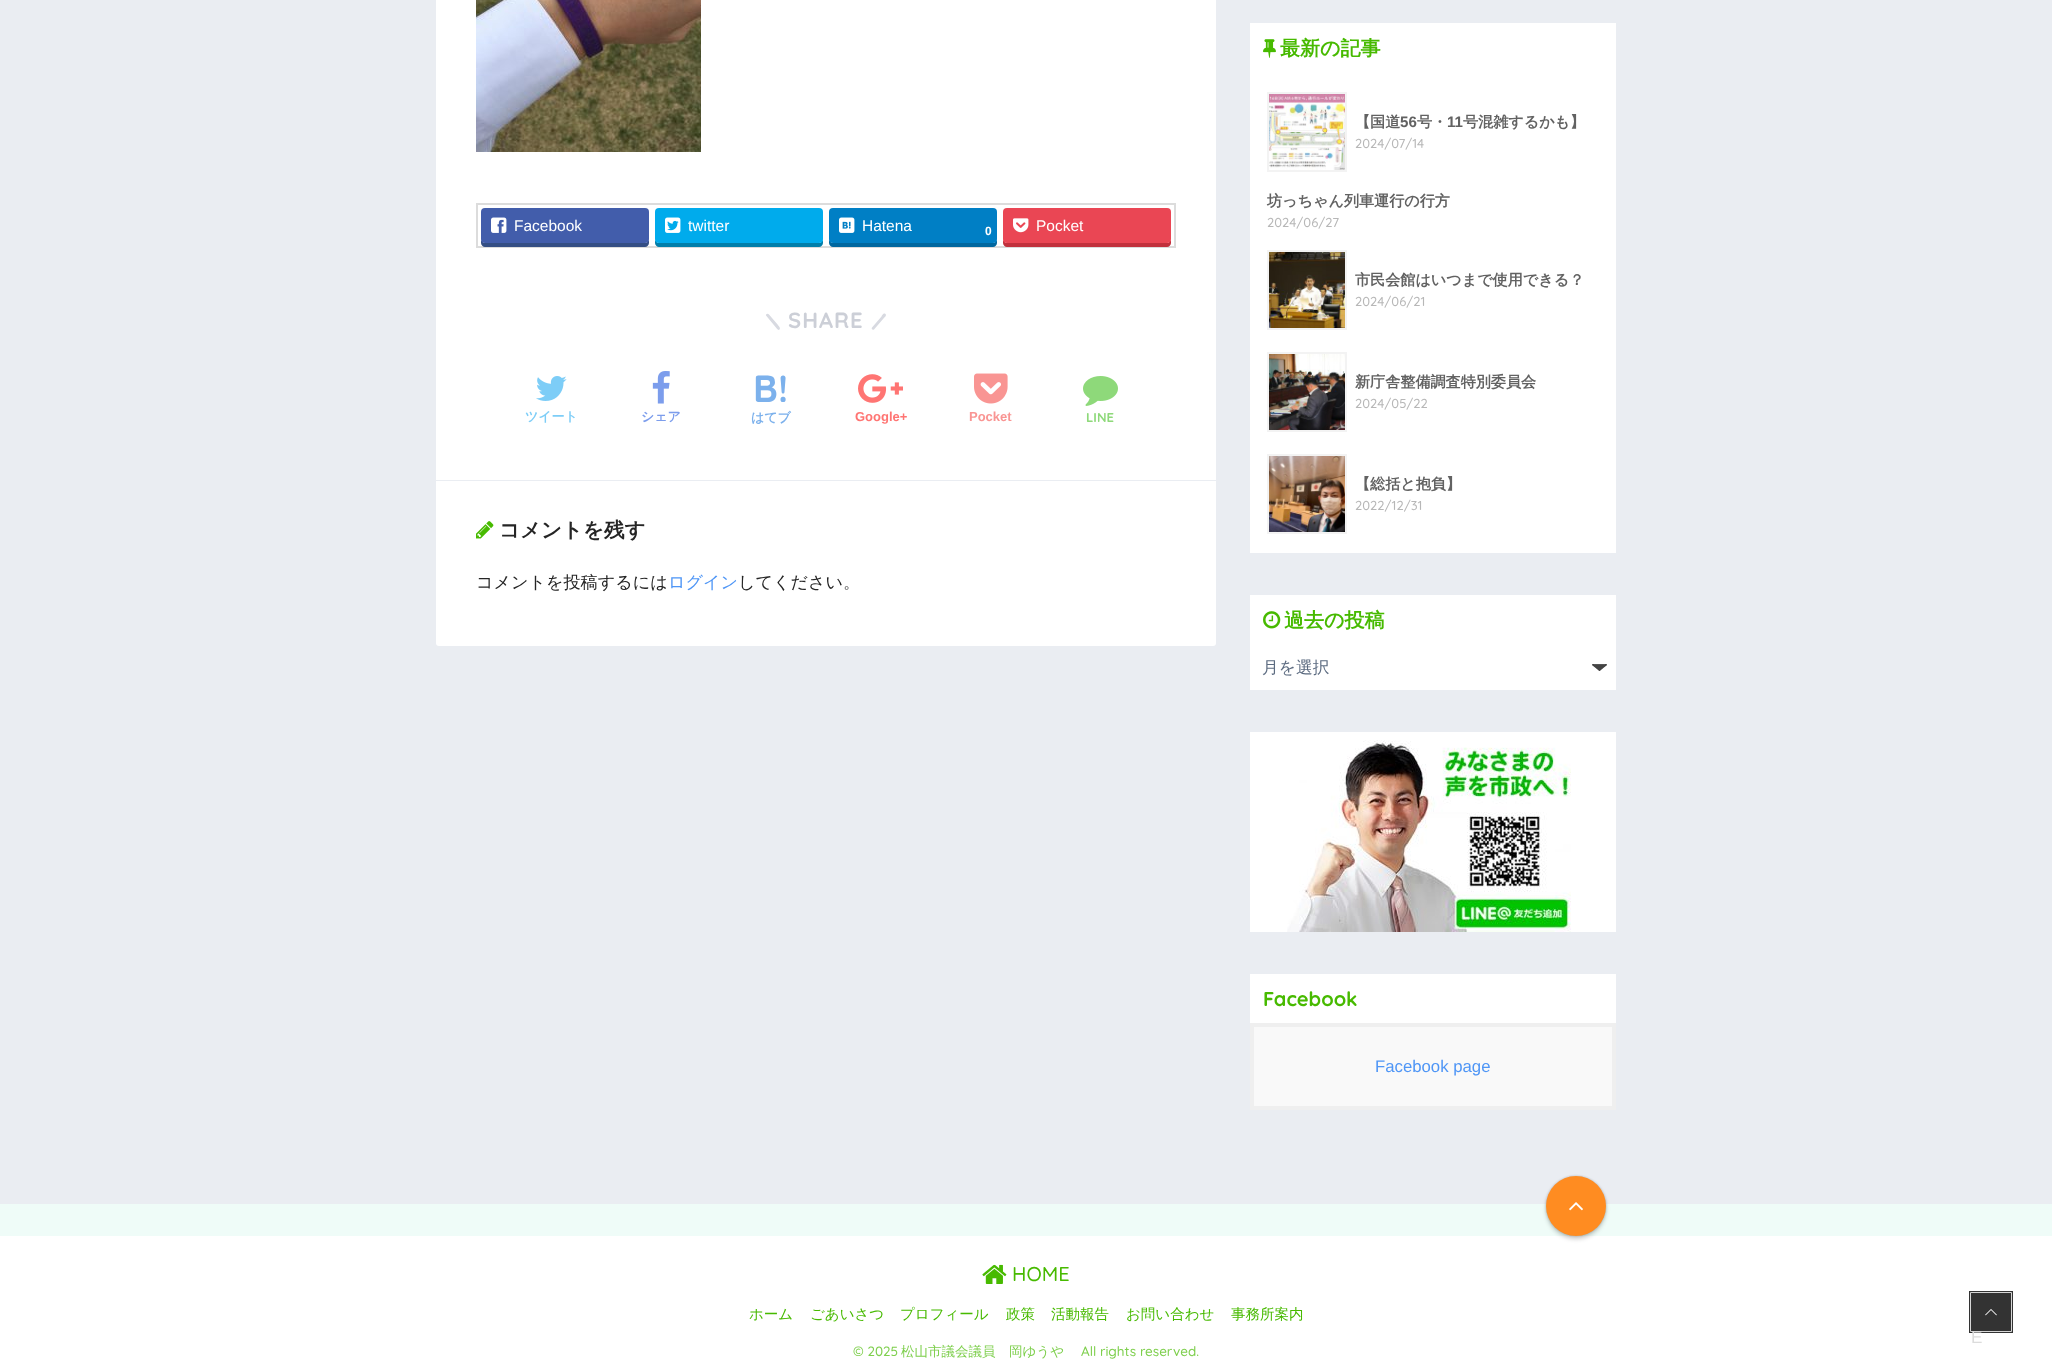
<svg xmlns="http://www.w3.org/2000/svg" width="2052" height="1372">
<style>
.a{font:15.5px Liberation Sans;fill:#fff}
.b{font:bold 12px Liberation Sans;fill:#fff}
.c{font:bold 22px Quicksand;letter-spacing:1px;fill:#cccfd7}
.d{font:bold 13px WenQuanYi Zen Hei;fill:#7dcdf7}
.e{font:bold 13px WenQuanYi Zen Hei;fill:#7c9dec}
.f{font:bold 38px Quicksand;fill:#7cb1ec}
.g{font:bold 13px WenQuanYi Zen Hei;fill:#7cb1ec}
.h{font:bold 13px Liberation Sans;fill:#ff7573}
.i{font:bold 13px Liberation Sans;fill:#f99593}
.j{font:bold 13px Quicksand;fill:#8ed97a}
.k{font:bold 20.5px WenQuanYi Zen Hei;fill:#252525}
.l{font:500 17.1px WenQuanYi Zen Hei;fill:#252525}
.m{font:500 17.1px WenQuanYi Zen Hei;fill:#4f96f6}
.n{font:bold 20px WenQuanYi Zen Hei;fill:#47ba00}
.o{font:bold 15.1px WenQuanYi Zen Hei;fill:#626262}
.p{font:bold 15.1px Liberation Sans;fill:#626262}
.q{font:500 13px Quicksand;fill:#b7b7b7}
.r{font:500 16.75px WenQuanYi Zen Hei;fill:#5c6b80}
.s{font:bold 20px Quicksand;fill:#47ba00}
.t{font:16.75px Liberation Sans;fill:#4f96f6}
.u{font:500 20px Quicksand;fill:#47ba00}
.v{font:500 14.5px WenQuanYi Zen Hei;fill:#47ba00}
.w{font:500 13.5px Quicksand;fill:#7ecf4d}
.x{font:500 13.5px WenQuanYi Zen Hei;fill:#7ecf4d}
.y{font:17.1px Liberation Sans;fill:#dcdcdc}
</style>
<rect width="100%" height="100%" fill="#eaedf2"/>
<rect fill="#fff" x="436" y="-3" width="780" height="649" rx="3"/>
<image href="1.png" x="476" y="0" width="225" height="152"/>
<path fill="none" stroke="#dcdcdc" stroke-width="2" d="M477 204h698v43H477z"/>
<path fill="#344e84" d="M481 239v4c0 2 2 4 4 4h160c2 0 4-2 4-4v-4c0 2-2 4-4 4h-160c-2 0-4-2-4-4z"/>
<rect fill="#425dab" x="481" y="208" width="168" height="35" rx="4"/>
<image href="2.png" x="491" y="217" width="16" height="16"/>
<path fill="#007eaa" d="M655 239v4c0 2 2 4 4 4h160c2 0 4-2 4-4v-4c0 2-2 4-4 4h-160c-2 0-4-2-4-4z"/>
<rect fill="#00abec" x="655" y="208" width="168" height="35" rx="4"/>
<image href="3.png" x="665" y="217" width="16" height="16"/>
<path fill="#00679f" d="M829 239v4c0 2 2 4 4 4h160c2 0 4-2 4-4v-4c0 2-2 4-4 4h-160c-2 0-4-2-4-4z"/>
<rect fill="#007fc5" x="829" y="208" width="168" height="35" rx="4"/>
<image href="4.png" x="839" y="217" width="16" height="16"/>
<path fill="#c1303c" d="M1003 239v4c0 2 2 4 4 4h160c2 0 4-2 4-4v-4c0 2-2 4-4 4h-160c-2 0-4-2-4-4z"/>
<rect fill="#ea4654" x="1003" y="208" width="168" height="35" rx="4"/>
<image href="5.png" x="1013" y="218" width="16" height="15"/>
<path fill="#d8dae1" d="M769 314.5l9 10.5c.5 1 3 3 1.5 4.5c-1.5 1.5-3-1.5-4-2.5l-9.5-11.5c-.5-1.5 2-2.5 3-1z"/>
<path fill="#d8dae1" d="M872 327.5l9.5-11c.5-1 2-4 4-2.5c1.5 1.5-1 3.5-2 4.5l-9.5 11c-1.5 1-3-1-2-2z"/>
<image href="6.png" x="536" y="376" width="31" height="25"/>
<image href="7.png" x="652" y="371" width="18" height="33"/>
<image href="8.png" x="858" y="374" width="45" height="29"/>
<image href="9.png" x="974" y="373" width="34" height="31"/>
<image href="10.png" x="1083" y="376" width="35" height="30"/>
<path fill="#eaedf2" d="M436 480h780v1H436z"/>
<image href="11.png" x="476" y="521" width="18" height="18"/>
<path fill="#fff" d="M1250 23h366v530H1250z"/>
<image href="12.png" x="1263" y="39" width="13" height="19"/>
<path fill="none" stroke="#f3f3f3" stroke-width="2" d="M1268 93h78v78H1268z"/>
<image href="13.png" x="1269" y="94" width="76" height="76"/>
<path fill="none" stroke="#f3f3f3" stroke-width="2" d="M1268 251h78v78H1268z"/>
<image href="14.png" x="1269" y="252" width="76" height="76"/>
<path fill="none" stroke="#f3f3f3" stroke-width="2" d="M1268 353h78v78H1268z"/>
<image href="15.png" x="1269" y="354" width="76" height="76"/>
<path fill="none" stroke="#f3f3f3" stroke-width="2" d="M1268 455h78v78H1268z"/>
<image href="16.png" x="1269" y="456" width="76" height="76"/>
<path fill="#fff" d="M1250 595h366v95H1250z"/>
<image href="17.png" x="1263" y="611" width="18" height="18"/>
<image href="18.png" x="1592" y="664" width="15" height="7"/>
<path fill="#fff" d="M1250 732h366v200H1250z"/>
<image href="19.png" x="1287" y="740" width="284" height="192"/>
<path fill="#fff" d="M1250 974h366v49H1250z"/>
<path fill="#f9f9f9" stroke="#efefef" stroke-width="4" d="M1252 1025h362v83H1252z"/>
<path fill="#effcf8" d="M0 1204h2052v32H0z"/>
<path fill="#fff" d="M0 1236h2052v136H0z"/>
<rect fill="#00000033" filter="blur(1px)" x="1546" y="1176" width="60" height="60" rx="30"/>
<rect fill="#00000033" filter="blur(2px)" x="1546" y="1179" width="60" height="60" rx="30"/>
<circle fill="#ff8c21" cx="1576" cy="1206" r="30"/>
<image href="20.png" x="1569" y="1202" width="14" height="9"/>
<image href="21.png" x="982" y="1264" width="25" height="20"/>
<path fill="none" stroke="#333" stroke-width="2" d="M1970 1292h42v40H1970z"/>
<path fill="none" stroke="#d6d6d6" d="M1970.5 1292.5h41v39H1970.5z"/>
<path fill="#333" d="M1971 1293h40v38H1971z"/>
<image href="22.png" x="1985" y="1309" width="12" height="7"/>
<text class="a" x="514" y="231">Facebook</text>
<text class="a" x="688" y="231">twitter</text>
<text class="a" x="862" y="231">Hatena</text>
<text class="b" x="985" y="235">0</text>
<text class="a" x="1036" y="231">Pocket</text>
<text class="c" x="788" y="328">SHARE</text>
<text class="d" x="525" y="421">ツイート</text>
<text class="e" x="641" y="421">シェア</text>
<text class="f" x="753" y="402">B!</text>
<text class="g" x="751" y="422">はてブ</text>
<text class="h" x="855" y="421">Google+</text>
<text class="i" x="969" y="421">Pocket</text>
<text class="j" x="1086" y="422">LINE</text>
<text class="k" x="499" y="537">コメントを残す</text>
<text class="l" x="476" y="588">コメントを投稿するには</text>
<text class="m" x="668" y="588">ログイン</text>
<text class="l" x="738" y="588">してください。</text>
<text class="n" x="1280" y="55">最新の記事</text>
<text class="o" x="1355" y="127">【国道</text>
<text class="p" x="1400" y="127">56</text>
<text class="o" x="1417" y="127">号・</text>
<text class="p" x="1447" y="127">11</text>
<text class="o" x="1463" y="127">号混雑するかも】</text>
<text class="q" x="1355" y="148">2024/07/14</text>
<text class="o" x="1267" y="206">坊っちゃん列車運行の行方</text>
<text class="q" x="1267" y="227">2024/06/27</text>
<text class="o" x="1355" y="285">市民会館はいつまで使用できる？</text>
<text class="q" x="1355" y="306">2024/06/21</text>
<text class="o" x="1355" y="387">新庁舎整備調査特別委員会</text>
<text class="q" x="1355" y="408">2024/05/22</text>
<text class="o" x="1355" y="489">【総括と抱負】</text>
<text class="q" x="1355" y="510">2022/12/31</text>
<text class="n" x="1284" y="627">過去の投稿</text>
<text class="r" x="1262" y="673">月を選択</text>
<text class="s" x="1263" y="1006">Facebook</text>
<text class="t" x="1375" y="1072">Facebook page</text>
<text class="u" x="1012" y="1281">HOME</text>
<text class="v" x="749" y="1319">ホーム</text>
<text class="v" x="810" y="1319">ごあいさつ</text>
<text class="v" x="900" y="1319">プロフィール</text>
<text class="v" x="1006" y="1319">政策</text>
<text class="v" x="1051" y="1319">活動報告</text>
<text class="v" x="1126" y="1319">お問い合わせ</text>
<text class="v" x="1231" y="1319">事務所案内</text>
<text class="w" x="853" y="1356">© 2025</text>
<text class="x" x="901" y="1356">松山市議会議員　岡ゆうや</text>
<text class="w" x="1081" y="1356">All rights reserved.</text>
<text class="y" x="1971" y="1343">E</text>
</svg>
